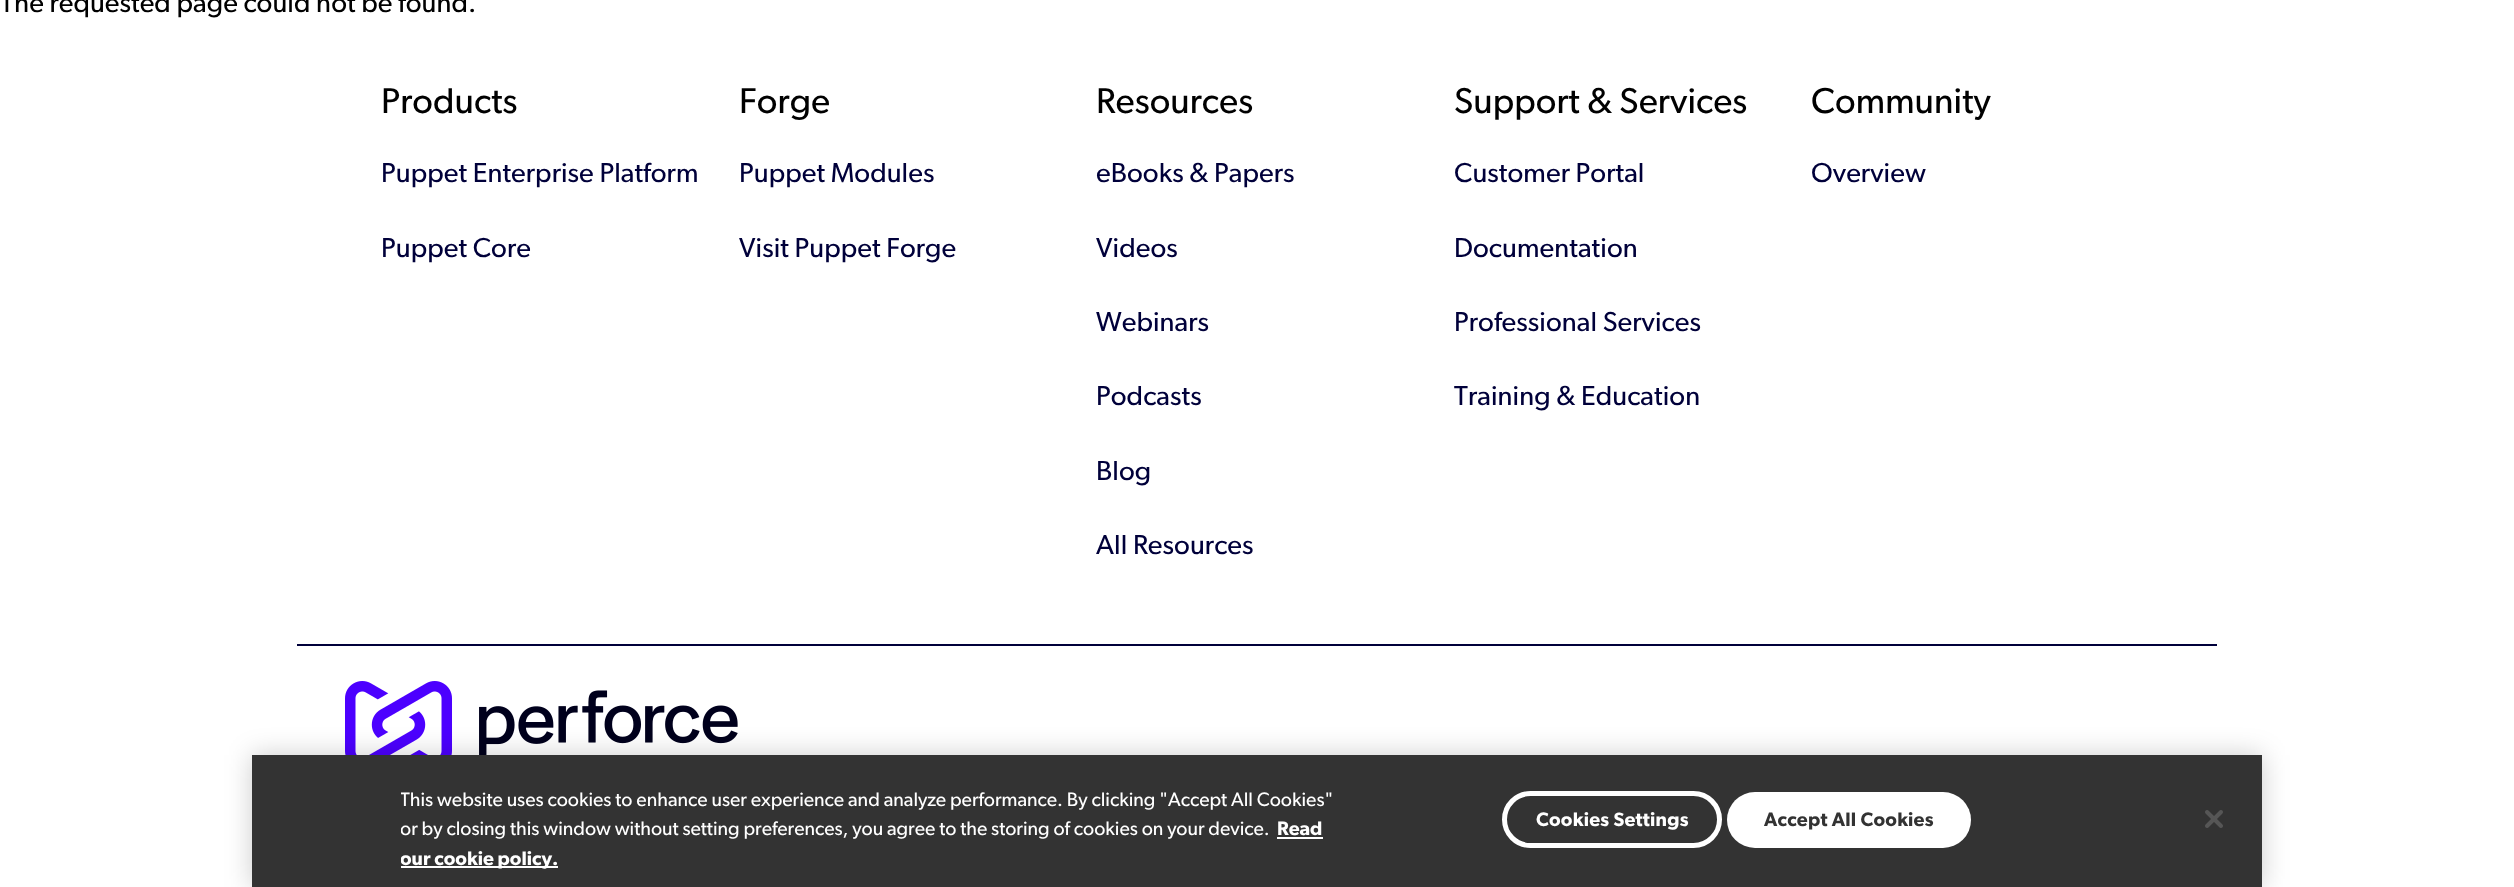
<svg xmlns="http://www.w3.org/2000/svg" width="2514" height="887">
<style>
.a{font:27.6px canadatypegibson;letter-spacing:0.1px;fill:#000}
.b{font:36px canadatypegibson;letter-spacing:0.1px;fill:#000}
.c{font:27.6px canadatypegibson;letter-spacing:0.1px;fill:#00003a}
.d{font:19.5px canadatypegibson;fill:#fff}
.e{font:600 19.5px canadatypegibson;fill:#fff}
.f{font:600 19.5px canadatypegibson;letter-spacing:0.25px;fill:#fff}
.g{font:600 19.5px canadatypegibson;letter-spacing:0.25px;fill:#333}
</style>
<defs>
<clipPath id="clip1"><path d="M401 785h946v88H401z"/></clipPath>
</defs>
<rect width="100%" height="100%" fill="#fff"/>
<path fill="#00003a" d="M297 644h1920v2H297z"/>
<image href="1.png" x="345" y="681" width="393" height="74"/>
<path fill="#00000033" filter="blur(13.5px)" d="M252 755h2010v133H252z"/>
<path fill="#333" d="M252 755h2010v132H252z"/>
<path fill="#fff" d="M1277 837h46v2H1277z"/>
<path fill="#fff" d="M401 866h157v2H401z"/>
<rect fill="none" stroke="#fff" stroke-width="5" x="1504.5" y="793.5" width="215" height="52" rx="26"/>
<rect fill="#fff" x="1727" y="792" width="244" height="56" rx="28"/>
<image href="2.png" x="2205" y="810" width="18" height="18"/>
<text class="a" x="0" y="12">The requested page could not be found.</text>
<text class="b" x="381" y="113">Products</text>
<text class="c" x="381" y="182">Puppet Enterprise Platform</text>
<text class="c" x="381" y="257">Puppet Core</text>
<text class="b" x="739" y="113">Forge</text>
<text class="c" x="739" y="182">Puppet Modules</text>
<text class="c" x="739" y="257">Visit Puppet Forge</text>
<text class="b" x="1096" y="113">Resources</text>
<text class="c" x="1096" y="182">eBooks &amp; Papers</text>
<text class="c" x="1096" y="257">Videos</text>
<text class="c" x="1096" y="331">Webinars</text>
<text class="c" x="1096" y="405">Podcasts</text>
<text class="c" x="1096" y="480">Blog</text>
<text class="c" x="1096" y="554">All Resources</text>
<text class="b" x="1454" y="113">Support &amp; Services</text>
<text class="c" x="1454" y="182">Customer Portal</text>
<text class="c" x="1454" y="257">Documentation</text>
<text class="c" x="1454" y="331">Professional Services</text>
<text class="c" x="1454" y="405">Training &amp; Education</text>
<text class="b" x="1811" y="113">Community</text>
<text class="c" x="1811" y="182">Overview</text>
<g clip-path="url(#clip1)">
<text class="d" x="400" y="806">This website uses cookies to enhance user experience and analyze performance. By clicking "Accept All Cookies"</text>
<text class="d" x="400" y="835">or by closing this window without setting preferences, you agree to the storing of cookies on your device.</text>
</g>
<text class="e" x="1277" y="835">Read</text>
<g clip-path="url(#clip1)">
<text class="e" x="400" y="865">our cookie policy.</text>
</g>
<text class="f" x="1536" y="826">Cookies Settings</text>
<text class="g" x="1764" y="826">Accept All Cookies</text>
</svg>
